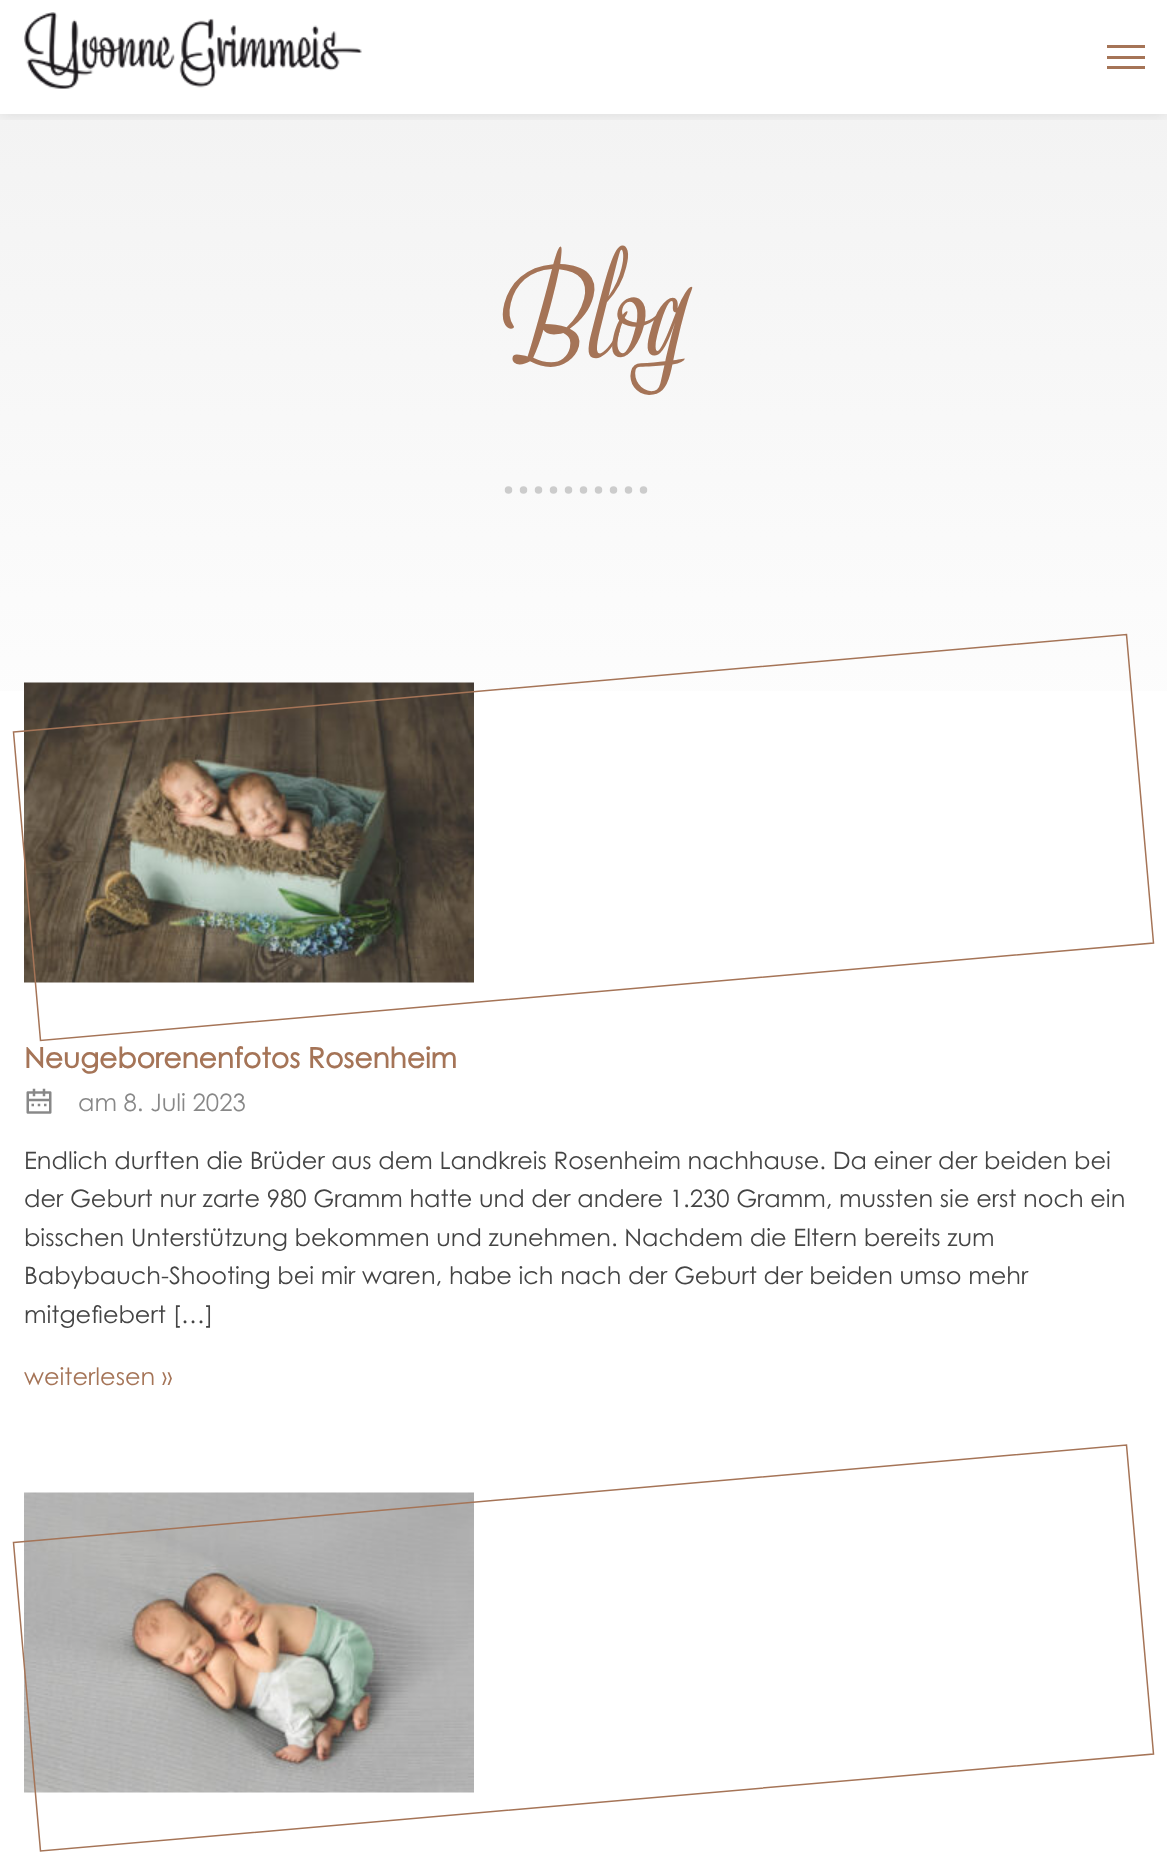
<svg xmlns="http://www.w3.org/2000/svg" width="1167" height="1865">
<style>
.a{font:italic 140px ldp;fill:#a57457}
.b{font:bold 28.1px Century Gothic;fill:#a57457}
.c{font:24px Century Gothic;fill:#888}
.d{font:24px Century Gothic;fill:#444}
.e{font:24px Century Gothic;fill:#a57457}
</style>
<defs>
<linearGradient id="g1" gradientUnits="userSpaceOnUse" x1="583" y1="114" x2="584" y2="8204"><stop offset="0" stop-color="#f3f3f3"/><stop offset="0.09" stop-color="#fff"/></linearGradient>
<clipPath id="clip1"><path d="M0 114h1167v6H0z"/></clipPath>
</defs>
<rect width="100%" height="100%" fill="#fff"/>
<path fill="url(#g1)" d="M0 114h1167v577H0z"/>
<g clip-path="url(#clip1)">
<path fill="#0000001a" filter="blur(7.5px)" d="M0 0h1167v114H0z"/>
</g>
<image href="1.png" x="24" y="12" width="338" height="77"/>
<path fill="#a57457" d="M1107 45h38v3H1107z"/>
<path fill="#a57457" d="M1107 56h38v3H1107z"/>
<path fill="#a57457" d="M1107 66h38v3H1107z"/>
<path fill="none" stroke="#ccc" stroke-width="7.5" stroke-linecap="round" stroke-dasharray="0 15" d="M508.5 490h150"/>
<image href="2.png" x="24" y="682" width="450" height="301"/>
<path fill="none" stroke="#a57457" stroke-width="1.5" d="M13.5 732l1113-97.5l27 308.5l-1113 97.5z"/>
<image href="3.png" x="26" y="1088" width="26" height="26"/>
<image href="4.png" x="24" y="1492" width="450" height="301"/>
<path fill="none" stroke="#a57457" stroke-width="1.5" d="M13.5 1542.5l1113-97.5l27 309l-1113 97z"/>
<text class="a" x="488" y="355">Blog</text>
<text class="b" x="24" y="1068">Neugeborenenfotos Rosenheim</text>
<text class="c" x="78" y="1111">am 8. Juli 2023</text>
<text class="d" x="24" y="1169">Endlich durften die Brüder aus dem Landkreis Rosenheim nachhause. Da einer der beiden bei</text>
<text class="d" x="24" y="1207">der Geburt nur zarte 980 Gramm hatte und der andere 1.230 Gramm, mussten sie erst noch ein</text>
<text class="d" x="24" y="1246">bisschen Unterstützung bekommen und zunehmen. Nachdem die Eltern bereits zum</text>
<text class="d" x="24" y="1284">Babybauch-Shooting bei mir waren, habe ich nach der Geburt der beiden umso mehr</text>
<text class="d" x="24" y="1323">mitgefiebert […]</text>
<text class="e" x="24" y="1385">weiterlesen »</text>
</svg>
